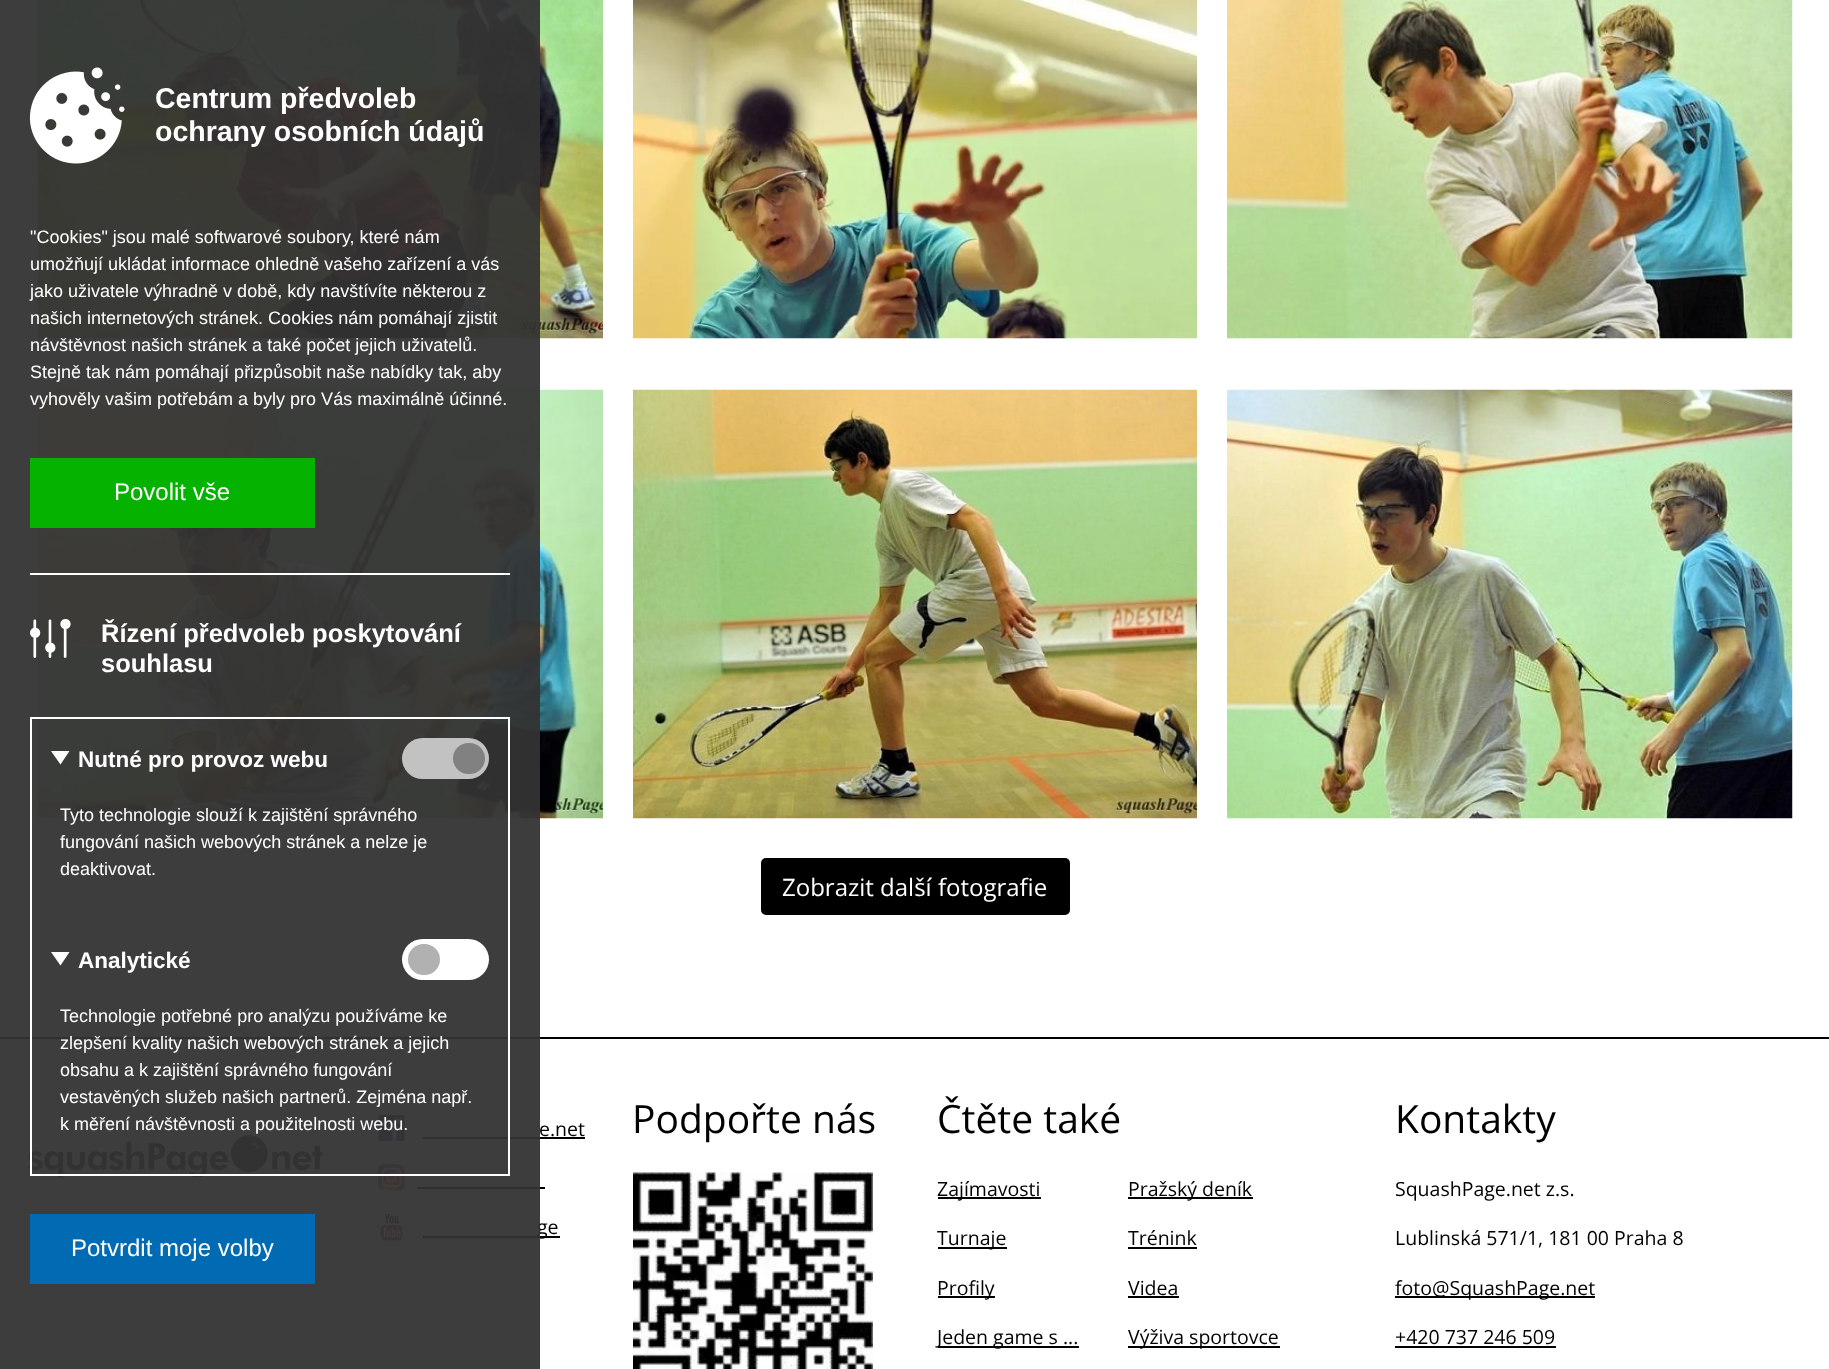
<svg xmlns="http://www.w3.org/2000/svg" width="1829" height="1369">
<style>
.a{font:24px Open Sans;fill:#fff}
.b{font:19.5px Open Sans;fill:#000}
.c{font:bold 22.5px Liberation Sans;fill:#fff}
.d{font:24px Liberation Sans;fill:#fff}
.e{font:18px Liberation Sans;fill:#fff}
.f{font:bold 25.5px Liberation Sans;fill:#fff}
.g{font:bold 28.5px Liberation Sans;fill:#fff}
.h{font:39px Open Sans;fill:#000}
</style>
<rect width="100%" height="100%" fill="#fff"/>
<image href="3.png" x="37" y="0" width="566" height="339"/>
<image href="4.png" x="633" y="0" width="564" height="339"/>
<image href="5.png" x="1227" y="0" width="566" height="339"/>
<image href="6.png" x="37" y="389" width="566" height="430"/>
<image href="7.png" x="633" y="389" width="564" height="430"/>
<image href="8.png" x="1227" y="389" width="566" height="430"/>
<rect fill="#000" x="761" y="858" width="309" height="57" rx="5"/>
<path fill="#000" d="M0 1037h1829v2H0z"/>
<image href="9.png" x="27" y="1135" width="296" height="43"/>
<image href="10.png" x="378" y="1115" width="27" height="27"/>
<path fill="#000" d="M423 1137h162v2H423z"/>
<image href="11.png" x="378" y="1164" width="27" height="27"/>
<path fill="#000" d="M417 1187h128v2H417z"/>
<image href="12.png" x="380" y="1214" width="23" height="27"/>
<path fill="#000" d="M423 1236h137v2H423z"/>
<image href="13.png" x="633" y="1172" width="240" height="197"/>
<path fill="#000" d="M938 1197h103v2H938z"/>
<path fill="#000" d="M938 1247h69v2H938z"/>
<path fill="#000" d="M938 1296h57v2H938z"/>
<path fill="#000" d="M938 1346h141v2H938z"/>
<path fill="#000" d="M1128 1197h125v2H1128z"/>
<path fill="#000" d="M1128 1247h69v2H1128z"/>
<path fill="#000" d="M1128 1296h51v2H1128z"/>
<path fill="#000" d="M1128 1346h152v2H1128z"/>
<path fill="#000" d="M1395 1296h200v2H1395z"/>
<path fill="#000" d="M1395 1346h161v2H1395z"/>
<text class="a" x="782" y="896">Zobrazit další fotografie</text>
<text class="b" x="539" y="1136">e.net</text>
<text class="b" x="537" y="1234">ge</text>
<path fill="#333333f2" d="M0 0h540v1369H0z"/>
<path fill="none" stroke="#fff" stroke-width="2" d="M31 718h478v457H31z"/>
<rect fill="#fff" x="402" y="939" width="87" height="41" rx="20.5"/>
<rect fill="#b1b1b1" x="408" y="944" width="32" height="31" rx="15.5"/>
<path fill="#fff" d="M60.5 965.5l-9.5-13.5h18.5z"/>
<text class="c" x="78" y="968">Analytické</text>
<rect fill="#c2c2c2" x="402" y="738" width="87" height="41" rx="20.5"/>
<rect fill="#818181" x="453" y="743" width="32" height="31" rx="15.5"/>
<path fill="#fff" d="M60.5 764.5l-9.5-13.5h18.5z"/>
<text class="c" x="78" y="767">Nutné pro provoz webu</text>
<path fill="#006bb2" d="M30 1214h285v70H30z"/>
<text class="d" x="71" y="1256">Potvrdit moje volby</text>
<text class="e" x="60" y="1130">k měření návštěvnosti a použitelnosti webu.</text>
<text class="e" x="60" y="1103">vestavěných služeb našich partnerů. Zejména např.</text>
<text class="e" x="60" y="1076">obsahu a k zajištění správného fungování</text>
<text class="e" x="60" y="1049">zlepšení kvality našich webových stránek a jejich</text>
<text class="e" x="60" y="1022">Technologie potřebné pro analýzu používáme ke</text>
<text class="e" x="60" y="875">deaktivovat.</text>
<text class="e" x="60" y="848">fungování našich webových stránek a nelze je</text>
<text class="e" x="60" y="821">Tyto technologie slouží k zajištění správného</text>
<text class="f" x="101" y="672">souhlasu</text>
<text class="f" x="101" y="642">Řízení předvoleb poskytování</text>
<image href="2.png" x="30" y="618" width="41" height="40"/>
<path fill="#06b200" d="M30 458h285v70H30z"/>
<text class="d" x="114" y="500">Povolit vše</text>
<text class="e" x="30" y="405">vyhověly vašim potřebám a byly pro Vás maximálně účinné.</text>
<text class="e" x="30" y="378">Stejně tak nám pomáhají přizpůsobit naše nabídky tak, aby</text>
<text class="e" x="30" y="351">návštěvnost našich stránek a také počet jejich uživatelů.</text>
<text class="e" x="30" y="324">našich internetových stránek. Cookies nám pomáhají zjistit</text>
<text class="e" x="30" y="297">jako uživatele výhradně v době, kdy navštívíte některou z</text>
<text class="e" x="30" y="270">umožňují ukládat informace ohledně vašeho zařízení a vás</text>
<text class="e" x="30" y="243">"Cookies" jsou malé softwarové soubory, které nám</text>
<text class="g" x="155" y="141">ochrany osobních údajů</text>
<text class="g" x="155" y="108">Centrum předvoleb</text>
<image href="1.png" x="29" y="67" width="96" height="97"/>
<path fill="#fff" d="M30 573h480v2H30z"/>
<text class="h" x="632" y="1133">Podpořte nás</text>
<text class="h" x="937" y="1133">Čtěte také</text>
<text class="b" x="937" y="1196">Zajímavosti</text>
<text class="b" x="937" y="1245">Turnaje</text>
<text class="b" x="937" y="1295">Profily</text>
<text class="b" x="937" y="1344">Jeden game s ...</text>
<text class="b" x="1128" y="1196">Pražský deník</text>
<text class="b" x="1128" y="1245">Trénink</text>
<text class="b" x="1128" y="1295">Videa</text>
<text class="b" x="1128" y="1344">Výživa sportovce</text>
<text class="h" x="1395" y="1133">Kontakty</text>
<text class="b" x="1395" y="1196">SquashPage.net z.s.</text>
<text class="b" x="1395" y="1245">Lublinská 571/1, 181 00 Praha 8</text>
<text class="b" x="1395" y="1295">foto@SquashPage.net</text>
<text class="b" x="1395" y="1344">+420 737 246 509</text>
</svg>
